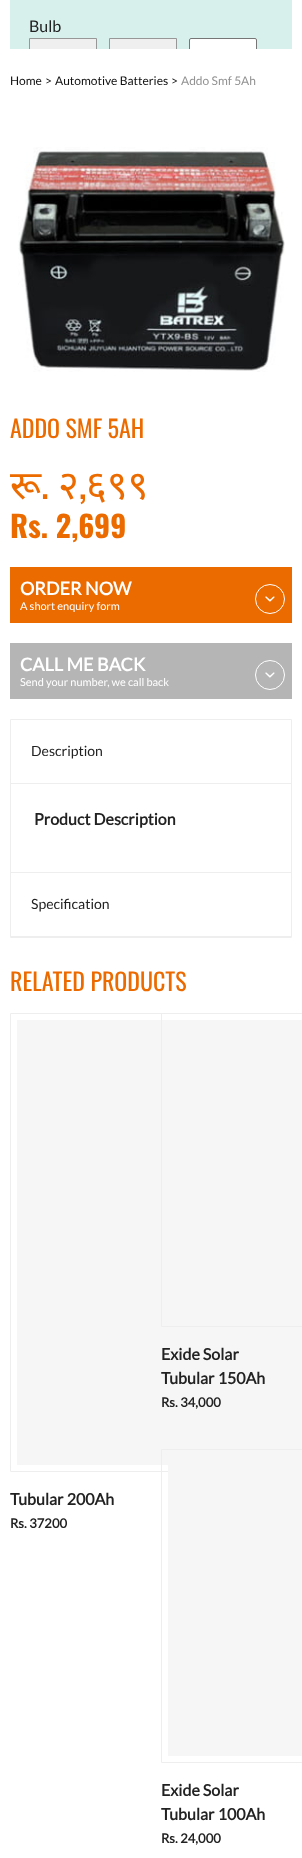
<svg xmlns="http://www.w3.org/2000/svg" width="302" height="1858">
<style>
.a{font:16px Lato;fill:#222}
.b{font:12px Lato;fill:#101010}
.c{font:12px Lato;fill:#222}
.d{font:12px Lato;fill:#929292}
.e{font:24px Oswald;fill:#ec6b00}
.f{font:40px Noto Sans;fill:#ec6b00}
.g{font:40px Oswald;fill:#ec6b00}
.h{font:bold 30px Oswald;fill:#ec6b00}
.i{font:bold 18px Lato;fill:#fff}
.j{font:11px Lato;fill:#fff}
.k{font:14px Lato;fill:#222}
.l{font:bold 16px Lato;fill:#222}
.m{font:bold 13px Lato;fill:#222}
</style>
<defs>
<clipPath id="clip1"><path d="M0 0h302v49H0z"/></clipPath>
</defs>
<rect width="100%" height="100%" fill="#fff"/>
<path fill="#d8f0ec" d="M10 0h282v49H10z"/>
<path fill="#efefef" d="M30 39h66v10H30z"/>
<g clip-path="url(#clip1)">
<path fill="none" stroke="#979797" d="M29.5 38.5h67v34H29.5z"/>
</g>
<path fill="#efefef" d="M110 39h66v10H110z"/>
<g clip-path="url(#clip1)">
<path fill="none" stroke="#979797" d="M109.5 38.5h67v34H109.5z"/>
</g>
<path fill="#fff" d="M191 38h64c1 0 2 1 2 2v9h-68v-9c0-1 1-2 2-2z"/>
<g clip-path="url(#clip1)">
<rect fill="none" stroke="#767676" x="189.5" y="38.5" width="67" height="34" rx="1.5"/>
</g>
<image href="1.png" x="18" y="147" width="267" height="225"/>
<path fill="#ec6b00" d="M10 567h282v56H10z"/>
<circle fill="none" stroke="#fff" cx="270" cy="599" r="14.5"/>
<image href="2.png" x="265" y="596" width="10" height="6"/>
<path fill="#b6b5b6" d="M10 643h282v56H10z"/>
<circle fill="none" stroke="#fff" cx="270" cy="675" r="14.5"/>
<image href="3.png" x="265" y="672" width="10" height="6"/>
<path fill="none" stroke="#eee" d="M10.5 719.5h281v218H10.5z"/>
<path fill="#eee" d="M11 783h280v1H11z"/>
<path fill="#eee" d="M11 872h280v1H11z"/>
<path fill="#eee" d="M11 936h280v1H11z"/>
<path fill="none" stroke="#eee" d="M10.5 1013.5h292v458H10.5z"/>
<path fill="#f6f6f6" d="M17 1020h285v445H17z"/>
<path fill="none" stroke="#eee" d="M161.5 1013.5h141v313H161.5z"/>
<path fill="none" stroke="#eee" d="M161.5 1449.5h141v313H161.5z"/>
<path fill="#f6f6f6" d="M168 1465h134v291H168z"/>
<text class="a" x="29" y="32">Bulb</text>
<text class="b" x="10" y="85">Home</text>
<text class="c" x="45" y="85">&gt;</text>
<text class="b" x="55" y="85">Automotive Batteries</text>
<text class="c" x="171" y="85">&gt;</text>
<text class="d" x="181" y="85">Addo Smf 5Ah</text>
<text class="e" x="10" y="438">ADDO SMF 5AH</text>
<text class="f" x="10" y="499">रू</text>
<text class="g" x="41" y="499">.</text>
<text class="f" x="58" y="499">२</text>
<text class="g" x="79" y="499">,</text>
<text class="f" x="86" y="499">६९९</text>
<text class="h" x="10" y="538">Rs. 2,699</text>
<text class="i" x="20" y="595">ORDER NOW</text>
<text class="j" x="20" y="610">A short enquiry form</text>
<text class="i" x="20" y="671">CALL ME BACK</text>
<text class="j" x="20" y="686">Send your number, we call back</text>
<text class="k" x="31" y="756">Description</text>
<text class="l" x="34" y="825">Product Description</text>
<text class="k" x="31" y="909">Specification</text>
<text class="e" x="10" y="991">RELATED PRODUCTS</text>
<text class="l" x="161" y="1360">Exide Solar</text>
<text class="l" x="161" y="1384">Tubular 150Ah</text>
<text class="m" x="161" y="1407">Rs. 34,000</text>
<text class="l" x="10" y="1505">Tubular 200Ah</text>
<text class="m" x="10" y="1528">Rs. 37200</text>
<text class="l" x="161" y="1796">Exide Solar</text>
<text class="l" x="161" y="1820">Tubular 100Ah</text>
<text class="m" x="161" y="1843">Rs. 24,000</text>
</svg>
